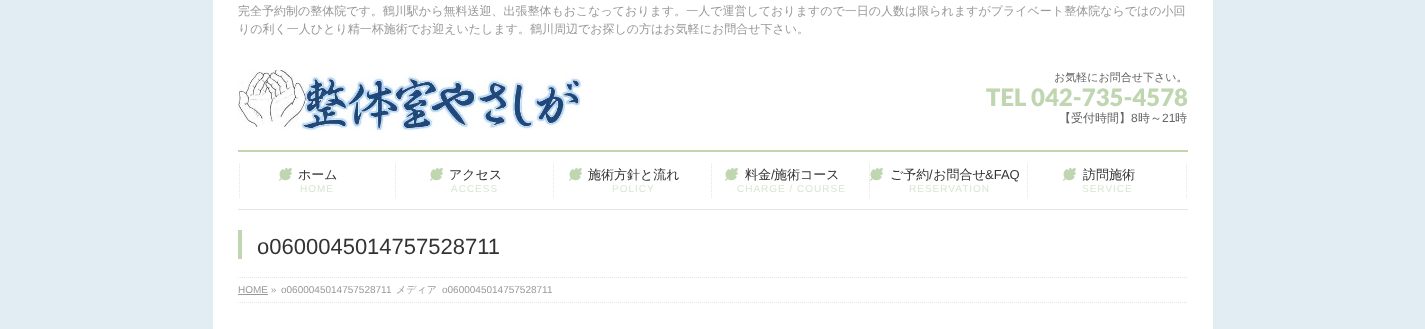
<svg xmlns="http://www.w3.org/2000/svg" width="1425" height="329">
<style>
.a{font:500 12px WenQuanYi Zen Hei;fill:#999}
.b{font:500 11px WenQuanYi Zen Hei;fill:#666}
.c{font:900 24px Lato;fill:#bfd6b1}
.d{font:500 12px WenQuanYi Zen Hei;fill:#666}
.e{font:12px Liberation Sans;fill:#666}
.f{font:500 13px WenQuanYi Zen Hei;fill:#333}
.g{font:10px Liberation Sans;letter-spacing:1px;fill:#d9e6d0}
.h{font:13px Liberation Sans;fill:#333}
.i{font:22px Liberation Sans;fill:#333}
.j{font:10px Liberation Sans;fill:#999}
.k{font:500 10px WenQuanYi Zen Hei;fill:#999}
</style>
<defs>
<clipPath id="clip1"><path d="M986 70h202v56H986z"/></clipPath>
</defs>
<rect width="100%" height="100%" fill="#e1edf2"/>
<path fill="#fff" d="M213 0h1000v210H213z"/>
<image href="1.png" x="238" y="70" width="343" height="60"/>
<path fill="#bfd6b1" d="M238 150h950v2H238z"/>
<path fill="#e5e5e5" d="M238 209h950v1H238z"/>
<path fill="none" stroke="#e5e5e5" stroke-dasharray="1 1" d="M239.5 163v35"/>
<image href="2.png" x="279" y="167" width="13" height="14"/>
<path fill="none" stroke="#e5e5e5" stroke-dasharray="1 1" d="M395.5 163v35"/>
<image href="2.png" x="430" y="167" width="13" height="14"/>
<path fill="none" stroke="#e5e5e5" stroke-dasharray="1 1" d="M553.5 163v35"/>
<image href="2.png" x="569" y="167" width="13" height="14"/>
<path fill="none" stroke="#e5e5e5" stroke-dasharray="1 1" d="M711.5 163v35"/>
<image href="2.png" x="725" y="167" width="13" height="14"/>
<path fill="none" stroke="#e5e5e5" stroke-dasharray="1 1" d="M869.5 163v35"/>
<image href="2.png" x="870" y="167" width="13" height="14"/>
<path fill="none" stroke="#e5e5e5" stroke-dasharray="1 1" d="M1027.5 163v35"/>
<image href="2.png" x="1063" y="167" width="13" height="14"/>
<path fill="none" stroke="#e5e5e5" stroke-dasharray="1 1" d="M1186.5 163v35"/>
<path fill="#fff" d="M213 210h1000v67H213z"/>
<path fill="#bfd6b1" d="M238 230h4v29H238z"/>
<path fill="#fff" d="M213 277h1000v52H213z"/>
<path fill="none" stroke="#e5e5e5" stroke-dasharray="1 1" d="M238 277.5h950"/>
<path fill="none" stroke="#e5e5e5" stroke-dasharray="1 1" d="M238 302.5h950"/>
<path fill="#999" d="M238 294h30v1H238z"/>
<text class="a" x="238" y="15">完全予約制の整体院です。鶴川駅から無料送迎、出張整体もおこなっております。一人で運営しておりますので一日の人数は限られますがプライベート整体院ならではの小回</text>
<text class="a" x="238" y="33">りの利く一人ひとり精一杯施術でお迎えいたします。鶴川周辺でお探しの方はお気軽にお問合せ下さい。</text>
<text class="b" x="1054" y="81">お気軽にお問合せ下さい。</text>
<g clip-path="url(#clip1)">
<text class="c" x="986" y="106">TEL 042-735-4578</text>
</g>
<text class="d" x="1059" y="122">【受付時間】</text>
<text class="e" x="1131" y="122">8</text>
<text class="d" x="1138" y="122">時～</text>
<text class="e" x="1162" y="122">21</text>
<text class="d" x="1175" y="122">時</text>
<text class="f" x="298" y="179">ホーム</text>
<text class="g" x="300" y="192">HOME</text>
<text class="f" x="449" y="179">アクセス</text>
<text class="g" x="451" y="192">ACCESS</text>
<text class="f" x="588" y="179">施術方針と流れ</text>
<text class="g" x="612" y="192">POLICY</text>
<text class="f" x="745" y="179">料金</text>
<text class="h" x="771" y="179">/</text>
<text class="f" x="774" y="179">施術コース</text>
<text class="g" x="737" y="192">CHARGE / COURSE</text>
<text class="f" x="890" y="179">ご予約 お問合せ</text>
<text class="h" x="929" y="179">/</text>
<text class="h" x="985" y="179">&amp;FAQ</text>
<text class="g" x="909" y="192">RESERVATION</text>
<text class="f" x="1083" y="179">訪問施術</text>
<text class="g" x="1082" y="192">SERVICE</text>
<text class="i" x="257" y="254">o0600045014757528711</text>
<text class="j" x="238" y="293">HOME »</text>
<text class="j" x="281" y="293">o0600045014757528711</text>
<text class="k" x="396" y="293">メディア</text>
<text class="j" x="442" y="293">o0600045014757528711</text>
</svg>
